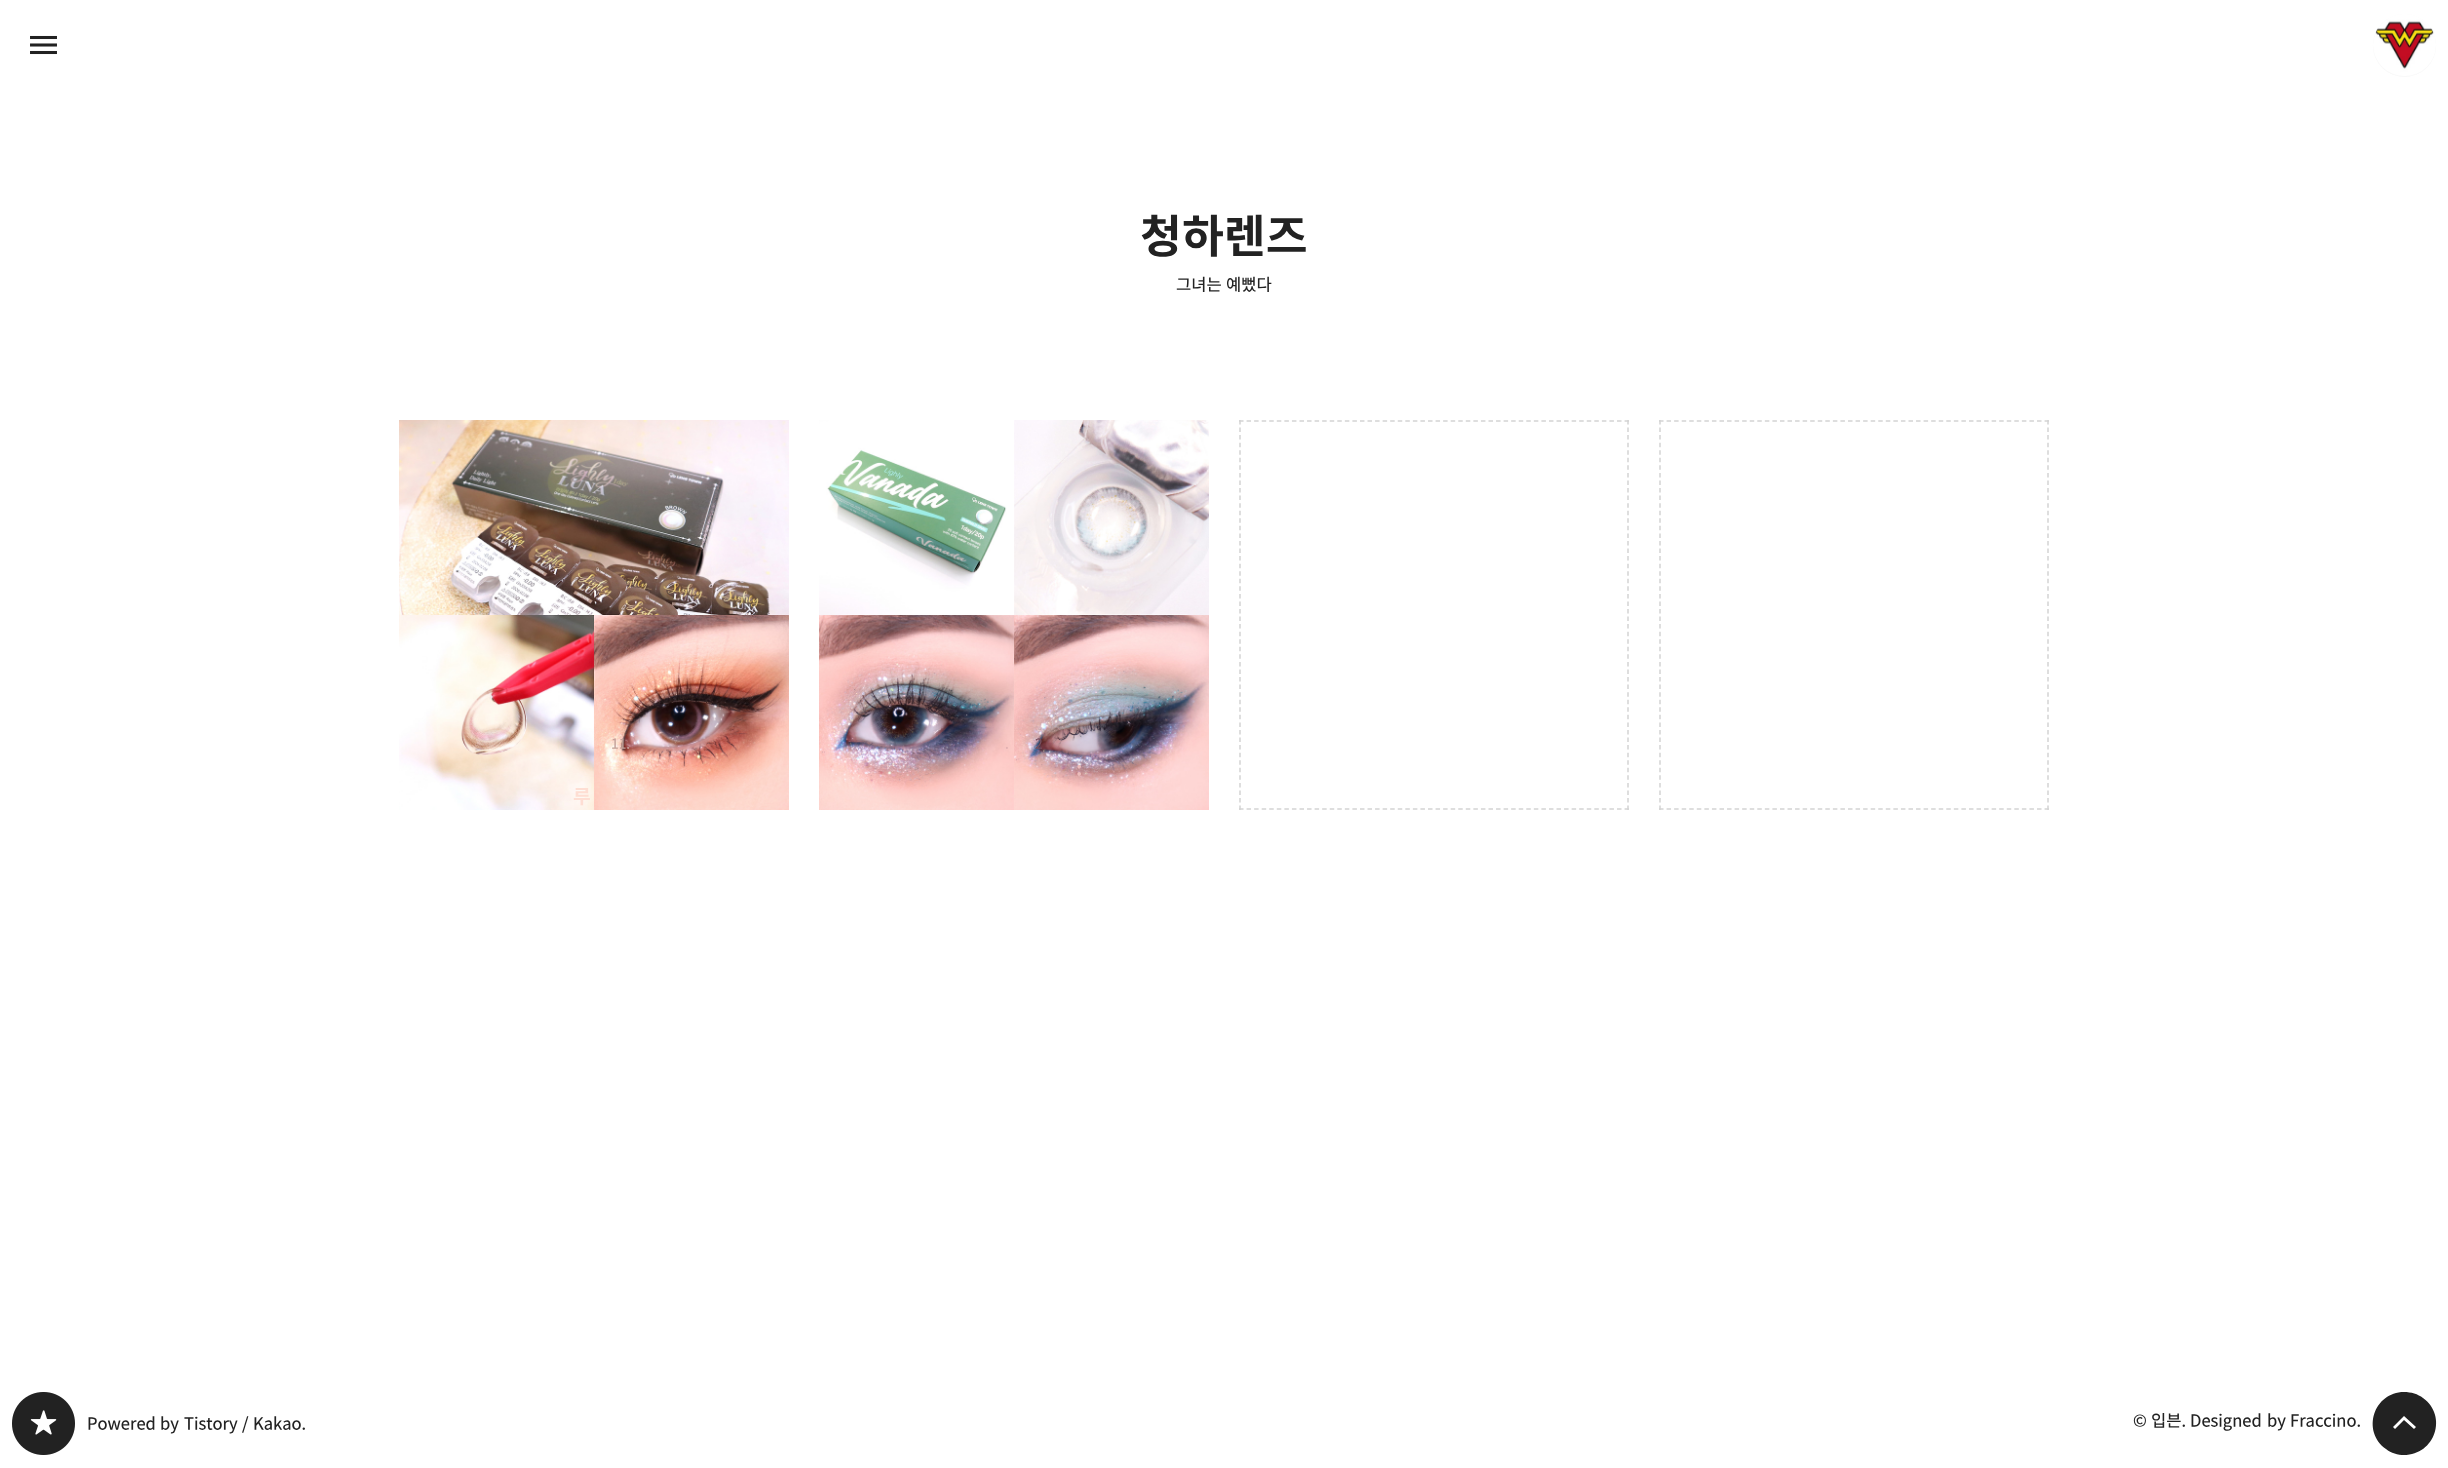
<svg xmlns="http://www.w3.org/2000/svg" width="2448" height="1468">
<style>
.a{font:bold 49.5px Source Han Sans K;fill:#222}
.b{font:18px Source Han Sans K;fill:#222}
.c{font:15px Source Han Sans K;fill:#c5a299}
.d{font:bold 21px Source Han Sans K;fill:#feded3}
.e{font:15px Source Han Sans K;fill:#deafb1}
.f{font:15px Source Han Sans K;fill:#774f5d}
.g{font:bold 21px Source Han Sans K;fill:#ecbcbb}
</style>
<rect width="100%" height="100%" fill="#fff"/>
<image href="1.png" x="30" y="35" width="27" height="20"/>
<circle fill="#f4f4f4" cx="2404.5" cy="45.5" r="31.5"/>
<image href="2.png" x="2373" y="14" width="63" height="63"/>
<image href="3.png" x="399" y="420" width="390" height="390"/>
<image href="4.png" x="819" y="420" width="390" height="390"/>
<path fill="none" stroke="#d3d3d3" stroke-width="1.5" stroke-dasharray="4.5 3.06" d="M1239 421h390"/>
<path fill="none" stroke="#d3d3d3" stroke-width="1.5" stroke-dasharray="4.5 3.06" d="M1628 420v390"/>
<path fill="none" stroke="#d3d3d3" stroke-width="1.5" stroke-dasharray="4.5 3.06" d="M1239 809h390"/>
<path fill="none" stroke="#d3d3d3" stroke-width="1.5" stroke-dasharray="4.5 3.06" d="M1240 420v390"/>
<path fill="none" stroke="#d3d3d3" stroke-width="1.5" stroke-dasharray="4.5 3.06" d="M1659 421h390"/>
<path fill="none" stroke="#d3d3d3" stroke-width="1.5" stroke-dasharray="4.5 3.06" d="M2048 420v390"/>
<path fill="none" stroke="#d3d3d3" stroke-width="1.5" stroke-dasharray="4.5 3.06" d="M1659 809h390"/>
<path fill="none" stroke="#d3d3d3" stroke-width="1.5" stroke-dasharray="4.5 3.06" d="M1660 420v390"/>
<image href="5.png" x="12" y="1392" width="63" height="63"/>
<path fill="#222" d="M2404 1392c-30 0-43 39-18 57c5 4 12 6 18 6c31 0 44-39 19-57c-5-4-12-6-19-6zm10 37l-10-9l-9 9l-2-2l11-11l12 11z"/>
<text class="a" x="1140" y="254">청하렌즈</text>
<text class="b" x="1176" y="291">그녀는</text>
<text class="b" x="1226" y="291">예뻤다</text>
<text class="c" x="611" y="749">11.</text>
<text class="d" x="573" y="804">루</text>
<text class="e" x="1005" y="749">.</text>
<text class="f" x="1035" y="749">2</text>
<text class="g" x="1076" y="776">:</text>
<text class="b" x="87" y="1430">Powered</text>
<text class="b" x="160" y="1430">by</text>
<text class="b" x="184" y="1430">Tistory</text>
<text class="b" x="242" y="1430">/</text>
<text class="b" x="253" y="1430">Kakao.</text>
<text class="b" x="2133" y="1427">©</text>
<text class="b" x="2151" y="1427">입븐.</text>
<text class="b" x="2190" y="1427">Designed</text>
<text class="b" x="2267" y="1427">by</text>
<text class="b" x="2290" y="1427">Fraccino.</text>
</svg>
